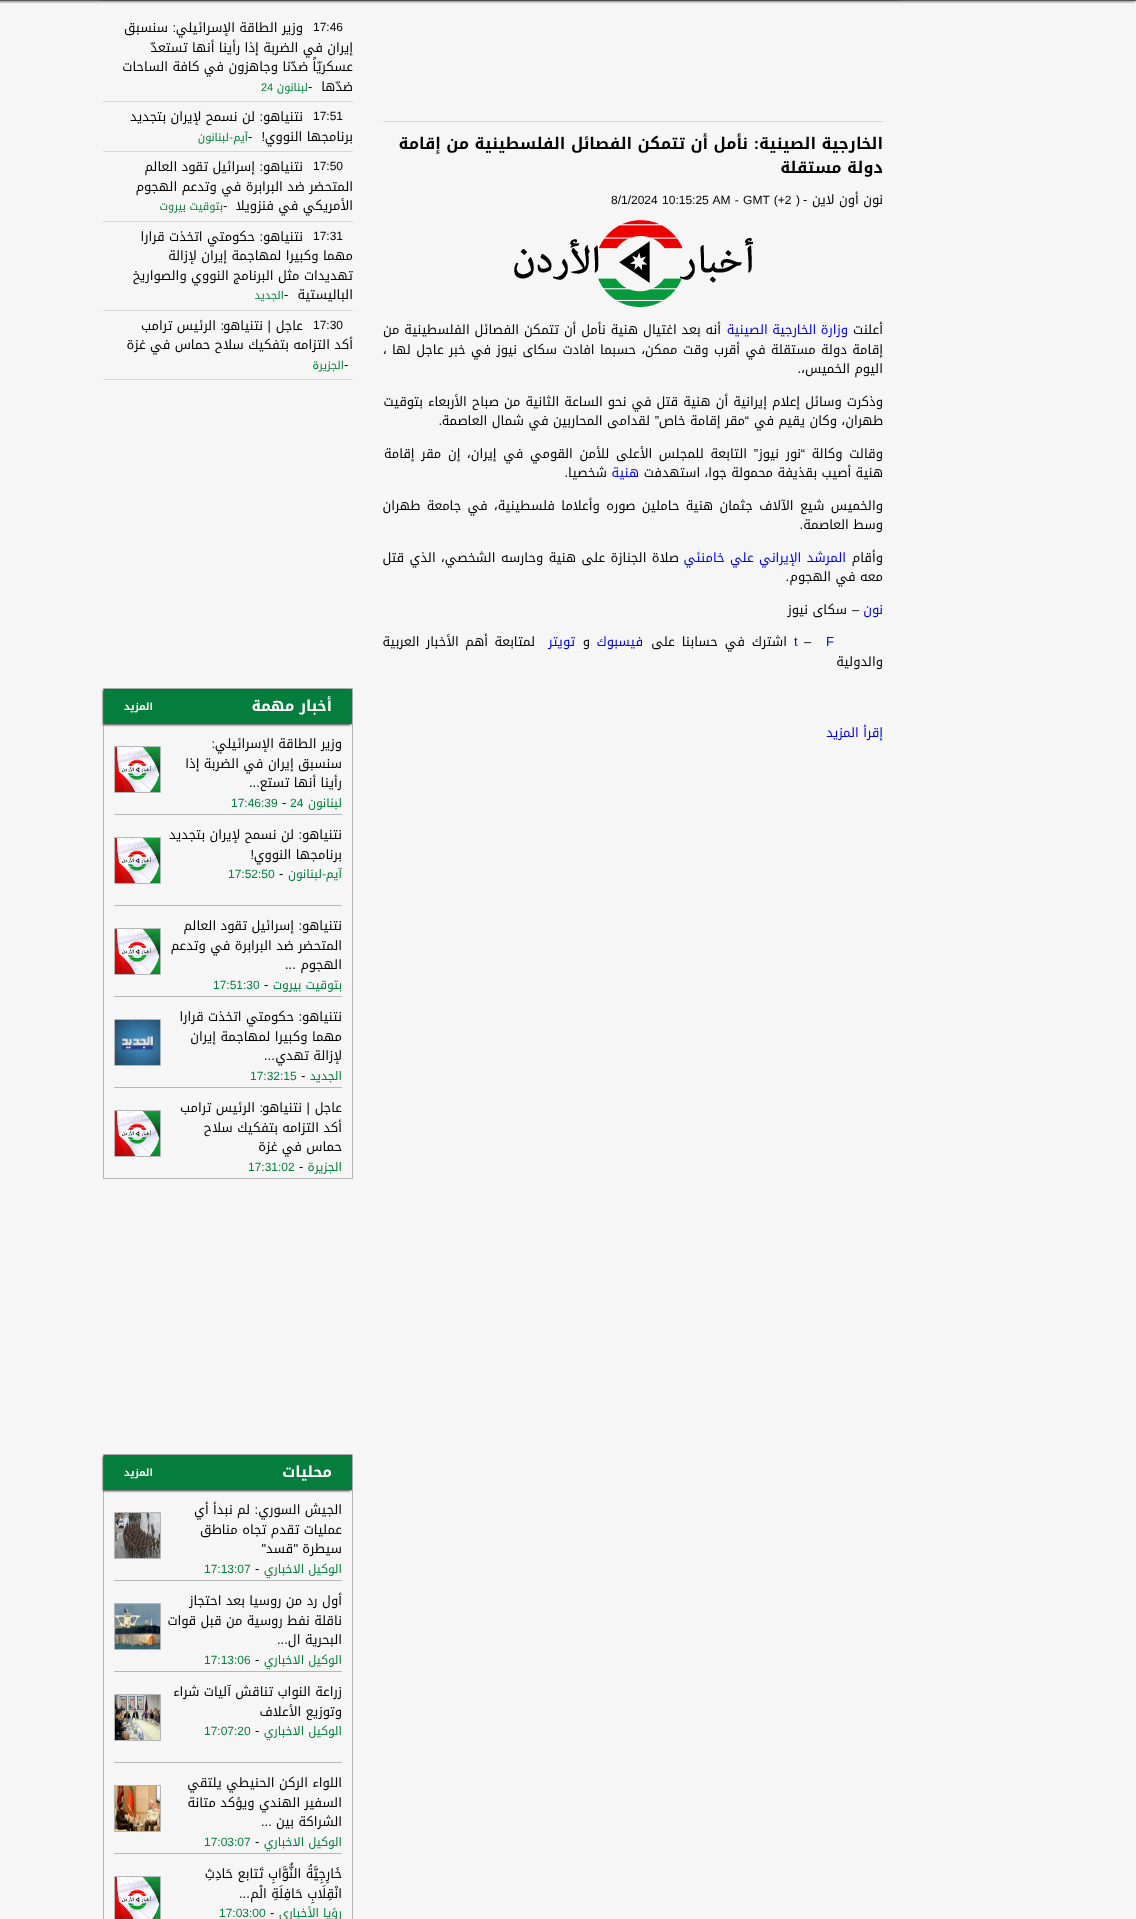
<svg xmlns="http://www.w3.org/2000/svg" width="1136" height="1919">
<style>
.a{font:bold 16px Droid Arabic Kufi;direction:rtl;fill:#000}
.b{font:bold 16px Liberation Sans;direction:rtl;fill:#000}
.c{font:13px Droid Arabic Kufi;direction:rtl;fill:#000}
.d{font:13px Liberation Sans;fill:#000}
.e{font:12px Liberation Sans;fill:#000}
.f{font:13px Droid Arabic Kufi;direction:rtl;fill:#00e}
.g{font:13px Liberation Sans;direction:rtl;fill:#000}
.h{font:13px Liberation Sans;fill:#00e}
.i{font:11px Droid Arabic Kufi;direction:rtl;fill:#057d3c}
.j{font:11px Liberation Sans;fill:#057d3c}
.k{font:11px Liberation Sans;direction:rtl;fill:#057d3c}
.l{font:bold 15px Droid Arabic Kufi;direction:rtl;fill:#fff}
.m{font:bold 10px Droid Arabic Kufi;direction:rtl;fill:#fff}
.n{font:12px Droid Arabic Kufi;direction:rtl;fill:#057d3c}
.o{font:12px Liberation Sans;fill:#057d3c}
.p{font:12px Liberation Sans;direction:rtl;fill:#057d3c}
</style>
<rect width="100%" height="100%" fill="#f6f6f6"/>
<path fill="#00000078" filter="blur(1px)" d="M-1 -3h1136v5H-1z"/>
<path fill="#58595b" d="M0 0h1136v1H0z"/>
<path fill="#4b4c4d" d="M103 0h796v1H103z"/>
<path fill="#d6d6d6" d="M383 121h500v1H383z"/>
<image href="1.png" x="514" y="220" width="239" height="87"/>
<path fill="#d6d6d6" d="M103 101h250v1H103z"/>
<path fill="#d6d6d6" d="M103 151h250v1H103z"/>
<path fill="#d6d6d6" d="M103 221h250v1H103z"/>
<path fill="#d6d6d6" d="M103 310h250v1H103z"/>
<path fill="#d6d6d6" d="M103 379h250v1H103z"/>
<path fill="none" stroke="#b7b7b7" d="M103.5 688.5h249v490H103.5z"/>
<path fill="#000000bf" filter="blur(1px)" d="M103 690h248v35H103z"/>
<path fill="#057d3c" d="M104 689h248v35H104z"/>
<path fill="#b7b7b7" d="M114 814h228v1H114z"/>
<path fill="none" stroke="#b7b7b7" d="M114.5 746.5h46v46H114.5z"/>
<image href="2.png" x="115" y="747" width="45" height="45"/>
<path fill="#b7b7b7" d="M114 905h228v1H114z"/>
<path fill="none" stroke="#b7b7b7" d="M114.5 837.5h46v46H114.5z"/>
<image href="2.png" x="115" y="838" width="45" height="45"/>
<path fill="#b7b7b7" d="M114 996h228v1H114z"/>
<path fill="none" stroke="#b7b7b7" d="M114.5 928.5h46v46H114.5z"/>
<image href="3.png" x="115" y="929" width="45" height="45"/>
<path fill="#b7b7b7" d="M114 1087h228v1H114z"/>
<path fill="none" stroke="#b7b7b7" d="M114.5 1019.5h46v46H114.5z"/>
<image href="4.png" x="115" y="1020" width="45" height="45"/>
<path fill="none" stroke="#b7b7b7" d="M114.5 1110.5h46v46H114.5z"/>
<image href="5.png" x="115" y="1111" width="45" height="45"/>
<path fill="none" stroke="#b7b7b7" d="M103.5 1454.5h249v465H103.5z"/>
<path fill="#000000bf" filter="blur(1px)" d="M103 1456h248v35H103z"/>
<path fill="#057d3c" d="M104 1455h248v35H104z"/>
<path fill="#b7b7b7" d="M114 1580h228v1H114z"/>
<path fill="none" stroke="#b7b7b7" d="M114.5 1512.5h46v46H114.5z"/>
<image href="6.png" x="115" y="1513" width="45" height="45"/>
<path fill="#b7b7b7" d="M114 1671h228v1H114z"/>
<path fill="none" stroke="#b7b7b7" d="M114.5 1603.5h46v46H114.5z"/>
<image href="7.png" x="115" y="1604" width="45" height="45"/>
<path fill="#b7b7b7" d="M114 1762h228v1H114z"/>
<path fill="none" stroke="#b7b7b7" d="M114.5 1694.5h46v46H114.5z"/>
<image href="8.png" x="115" y="1695" width="45" height="45"/>
<path fill="#b7b7b7" d="M114 1853h228v1H114z"/>
<path fill="none" stroke="#b7b7b7" d="M114.5 1785.5h46v46H114.5z"/>
<image href="9.png" x="115" y="1786" width="45" height="45"/>
<path fill="none" stroke="#b7b7b7" d="M114.5 1876.5h46v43H114.5z"/>
<image href="10.png" x="115" y="1877" width="45" height="42"/>
<text class="a" x="883" y="149">الخارجية الصينية</text>
<text class="b" x="759" y="149">:</text>
<text class="a" x="748" y="149">نأمل أن تتمكن الفصائل الفلسطينية من إقامة</text>
<text class="a" x="883" y="173">دولة مستقلة</text>
<text class="c" x="883" y="204">نون أون لاين</text>
<text class="d" x="803" y="204">-</text>
<text class="e" x="611" y="204" word-spacing="1">8/1/2024 10:15:25 AM - GMT (+2 )</text>
<text class="c" x="883" y="334">أعلنت</text>
<text class="f" x="848" y="334">وزارة الخارجية الصينية</text>
<text class="c" x="721" y="334" word-spacing="0.5">أنه بعد اغتيال هنية نأمل أن تتمكن الفصائل الفلسطينية من</text>
<text class="c" x="883" y="354" word-spacing="1">إقامة دولة مستقلة في أقرب وقت ممكن، حسبما افادت سكاى نيوز في خبر عاجل لها ،</text>
<text class="c" x="883" y="373">اليوم الخميس،</text>
<text class="g" x="801" y="373">.</text>
<text class="c" x="883" y="406" word-spacing="0.6">وذكرت وسائل إعلام إيرانية أن هنية قتل في نحو الساعة الثانية من صباح الأربعاء بتوقيت</text>
<text class="c" x="883" y="425">طهران، وكان يقيم في</text>
<text class="g" x="749" y="425">“</text>
<text class="c" x="745" y="425">مقر إقامة خاص</text>
<text class="g" x="659" y="425">”</text>
<text class="c" x="650" y="425">لقدامى المحاربين في شمال العاصمة</text>
<text class="g" x="442" y="425">.</text>
<text class="c" x="883" y="458" word-spacing="2.25">وقالت وكالة</text>
<text class="g" x="805" y="458">“</text>
<text class="g" x="758" y="458">”</text>
<text class="c" x="801" y="458" word-spacing="2.25">نور نيوز</text>
<text class="c" x="747" y="458" word-spacing="2.25">التابعة للمجلس الأعلى للأمن القومي في إيران، إن مقر إقامة</text>
<text class="c" x="883" y="477">هنية أصيب بقذيفة محمولة جوا، استهدفت</text>
<text class="f" x="639" y="477">هنية</text>
<text class="c" x="607" y="477">شخصيا</text>
<text class="g" x="568" y="477">.</text>
<text class="c" x="883" y="510" word-spacing="1.9">والخميس شيع الآلاف جثمان هنية حاملين صوره وأعلاما فلسطينية، في جامعة طهران</text>
<text class="c" x="883" y="529">وسط العاصمة</text>
<text class="g" x="803" y="529">.</text>
<text class="c" x="883" y="562">وأقام</text>
<text class="f" x="846" y="562" word-spacing="1">المرشد الإيراني علي خامنئي</text>
<text class="c" x="679" y="562" word-spacing="1">صلاة الجنازة على هنية وحارسه الشخصي، الذي قتل</text>
<text class="c" x="883" y="581">معه في الهجوم</text>
<text class="g" x="789" y="581">.</text>
<text class="f" x="883" y="614">نون</text>
<text class="d" x="852" y="614">–</text>
<text class="c" x="847" y="614">سكاى نيوز</text>
<text class="h" x="826" y="646">F</text>
<text class="d" x="804" y="646">–</text>
<text class="h" x="794" y="646">t</text>
<text class="c" x="787" y="646" word-spacing="2.5">اشترك في حسابنا على</text>
<text class="f" x="643" y="646">فيسبوك</text>
<text class="c" x="590" y="646">و</text>
<text class="f" x="575" y="646">تويتر</text>
<text class="c" x="535" y="646" word-spacing="2">لمتابعة أهم الأخبار العربية</text>
<text class="c" x="883" y="666">والدولية</text>
<text class="f" x="883" y="737">إقرأ المزيد</text>
<text class="e" x="313" y="31">17:46</text>
<text class="c" x="303" y="32">وزير الطاقة الإسرائيلي</text>
<text class="g" x="176" y="32">:</text>
<text class="c" x="168" y="32">سنسبق</text>
<text class="c" x="353" y="52">إيران في الضربة إذا رأينا أنها تستعدّ</text>
<text class="c" x="353" y="71">عسكريّاً ضدّنا وجاهزون في كافة الساحات</text>
<text class="c" x="353" y="91">ضدّها</text>
<text class="d" x="308" y="91">-</text>
<text class="i" x="308" y="91">لبنانون</text>
<text class="j" x="261" y="91">24</text>
<text class="e" x="313" y="120">17:51</text>
<text class="c" x="303" y="121">نتنياهو</text>
<text class="g" x="263" y="121">:</text>
<text class="c" x="255" y="121">لن نسمح لإيران بتجديد</text>
<text class="c" x="353" y="141">برنامجها النووي</text>
<text class="g" x="265" y="141">!</text>
<text class="d" x="248" y="141">-</text>
<text class="i" x="248" y="141">آيم</text>
<text class="k" x="233" y="141">-</text>
<text class="i" x="229" y="141">لبنانون</text>
<text class="e" x="313" y="170">17:50</text>
<text class="c" x="303" y="171">نتنياهو</text>
<text class="g" x="263" y="171">:</text>
<text class="c" x="255" y="171">إسرائيل تقود العالم</text>
<text class="c" x="353" y="191">المتحضر ضد البرابرة في وتدعم الهجوم</text>
<text class="c" x="353" y="210">الأمريكي في فنزويلا</text>
<text class="d" x="223" y="210">-</text>
<text class="i" x="223" y="210">بتوقيت بيروت</text>
<text class="e" x="313" y="240">17:31</text>
<text class="c" x="303" y="241">نتنياهو</text>
<text class="g" x="263" y="241">:</text>
<text class="c" x="255" y="241">حكومتي اتخذت قرارا</text>
<text class="c" x="353" y="260">مهما وكبيرا لمهاجمة إيران لإزالة</text>
<text class="c" x="353" y="280">تهديدات مثل البرنامج النووي والصواريخ</text>
<text class="c" x="353" y="299">الباليستية</text>
<text class="d" x="284" y="299">-</text>
<text class="i" x="284" y="299">الجديد</text>
<text class="e" x="313" y="329">17:30</text>
<text class="c" x="303" y="330">عاجل</text>
<text class="g" x="271" y="330">|</text>
<text class="c" x="263" y="330">نتنياهو</text>
<text class="g" x="224" y="330">:</text>
<text class="c" x="216" y="330">الرئيس ترامب</text>
<text class="c" x="353" y="349">أكد التزامه بتفكيك سلاح حماس في غزة</text>
<text class="d" x="344" y="369">-</text>
<text class="i" x="344" y="369">الجزيرة</text>
<text class="l" x="332" y="711">أخبار مهمة</text>
<text class="m" x="153" y="710">المزيد</text>
<text class="c" x="342" y="748">وزير الطاقة الإسرائيلي</text>
<text class="g" x="215" y="748">:</text>
<text class="c" x="342" y="768">سنسبق إيران في الضربة إذا</text>
<text class="c" x="342" y="787">رأينا أنها تستع</text>
<text class="d" x="249" y="787">...</text>
<text class="n" x="342" y="807">لبنانون</text>
<text class="o" x="290" y="807">24</text>
<text class="d" x="282" y="807">-</text>
<text class="o" x="231" y="807">17:46:39</text>
<text class="c" x="342" y="839">نتنياهو</text>
<text class="g" x="302" y="839">:</text>
<text class="c" x="294" y="839">لن نسمح لإيران بتجديد</text>
<text class="c" x="342" y="859">برنامجها النووي</text>
<text class="g" x="254" y="859">!</text>
<text class="n" x="342" y="878">آيم</text>
<text class="p" x="326" y="878">-</text>
<text class="n" x="322" y="878">لبنانون</text>
<text class="d" x="279" y="878">-</text>
<text class="o" x="228" y="878">17:52:50</text>
<text class="c" x="342" y="930">نتنياهو</text>
<text class="g" x="302" y="930">:</text>
<text class="c" x="294" y="930">إسرائيل تقود العالم</text>
<text class="c" x="342" y="950">المتحضر ضد البرابرة في وتدعم</text>
<text class="c" x="342" y="969">الهجوم</text>
<text class="d" x="285" y="969">...</text>
<text class="n" x="342" y="989">بتوقيت بيروت</text>
<text class="d" x="264" y="989">-</text>
<text class="o" x="213" y="989">17:51:30</text>
<text class="c" x="342" y="1021">نتنياهو</text>
<text class="g" x="302" y="1021">:</text>
<text class="c" x="294" y="1021">حكومتي اتخذت قرارا</text>
<text class="c" x="342" y="1041">مهما وكبيرا لمهاجمة إيران</text>
<text class="c" x="342" y="1060">لإزالة تهدي</text>
<text class="d" x="264" y="1060">...</text>
<text class="n" x="342" y="1080">الجديد</text>
<text class="d" x="301" y="1080">-</text>
<text class="o" x="250" y="1080">17:32:15</text>
<text class="c" x="342" y="1112">عاجل</text>
<text class="g" x="310" y="1112">|</text>
<text class="c" x="302" y="1112">نتنياهو</text>
<text class="g" x="263" y="1112">:</text>
<text class="c" x="255" y="1112">الرئيس ترامب</text>
<text class="c" x="342" y="1132">أكد التزامه بتفكيك سلاح</text>
<text class="c" x="342" y="1151">حماس في غزة</text>
<text class="n" x="342" y="1171">الجزيرة</text>
<text class="d" x="299" y="1171">-</text>
<text class="o" x="248" y="1171">17:31:02</text>
<text class="l" x="332" y="1477">محليات</text>
<text class="m" x="153" y="1476">المزيد</text>
<text class="c" x="342" y="1514">الجيش السوري</text>
<text class="g" x="258" y="1514">:</text>
<text class="c" x="250" y="1514">لم نبدأ أي</text>
<text class="c" x="342" y="1534">عمليات تقدم تجاه مناطق</text>
<text class="c" x="342" y="1553">سيطرة</text>
<text class="g" x="298" y="1553">"</text>
<text class="c" x="293" y="1553">قسد</text>
<text class="g" x="266" y="1553">"</text>
<text class="n" x="342" y="1573">الوكيل الاخباري</text>
<text class="d" x="255" y="1573">-</text>
<text class="o" x="204" y="1573">17:13:07</text>
<text class="c" x="342" y="1605">أول رد من روسيا بعد احتجاز</text>
<text class="c" x="342" y="1625">ناقلة نفط روسية من قبل قوات</text>
<text class="c" x="342" y="1644">البحرية ال</text>
<text class="d" x="277" y="1644">...</text>
<text class="n" x="342" y="1664">الوكيل الاخباري</text>
<text class="d" x="255" y="1664">-</text>
<text class="o" x="204" y="1664">17:13:06</text>
<text class="c" x="342" y="1696">زراعة النواب تناقش آليات شراء</text>
<text class="c" x="342" y="1716">وتوزيع الأعلاف</text>
<text class="n" x="342" y="1735">الوكيل الاخباري</text>
<text class="d" x="255" y="1735">-</text>
<text class="o" x="204" y="1735">17:07:20</text>
<text class="c" x="342" y="1787">اللواء الركن الحنيطي يلتقي</text>
<text class="c" x="342" y="1807">السفير الهندي ويؤكد متانة</text>
<text class="c" x="342" y="1826">الشراكة بين</text>
<text class="d" x="261" y="1826">...</text>
<text class="n" x="342" y="1846">الوكيل الاخباري</text>
<text class="d" x="255" y="1846">-</text>
<text class="o" x="204" y="1846">17:03:07</text>
<text class="c" x="342" y="1878">خَارِجِيَّةُ النُّوَّابِ تَتابع حَادِثِ</text>
<text class="c" x="342" y="1898">انْقِلَابِ حَافِلَةِ الْم</text>
<text class="d" x="239" y="1898">...</text>
<text class="n" x="342" y="1917">رؤيا الأخباري</text>
<text class="d" x="270" y="1917">-</text>
<text class="o" x="219" y="1917">17:03:00</text>
</svg>
